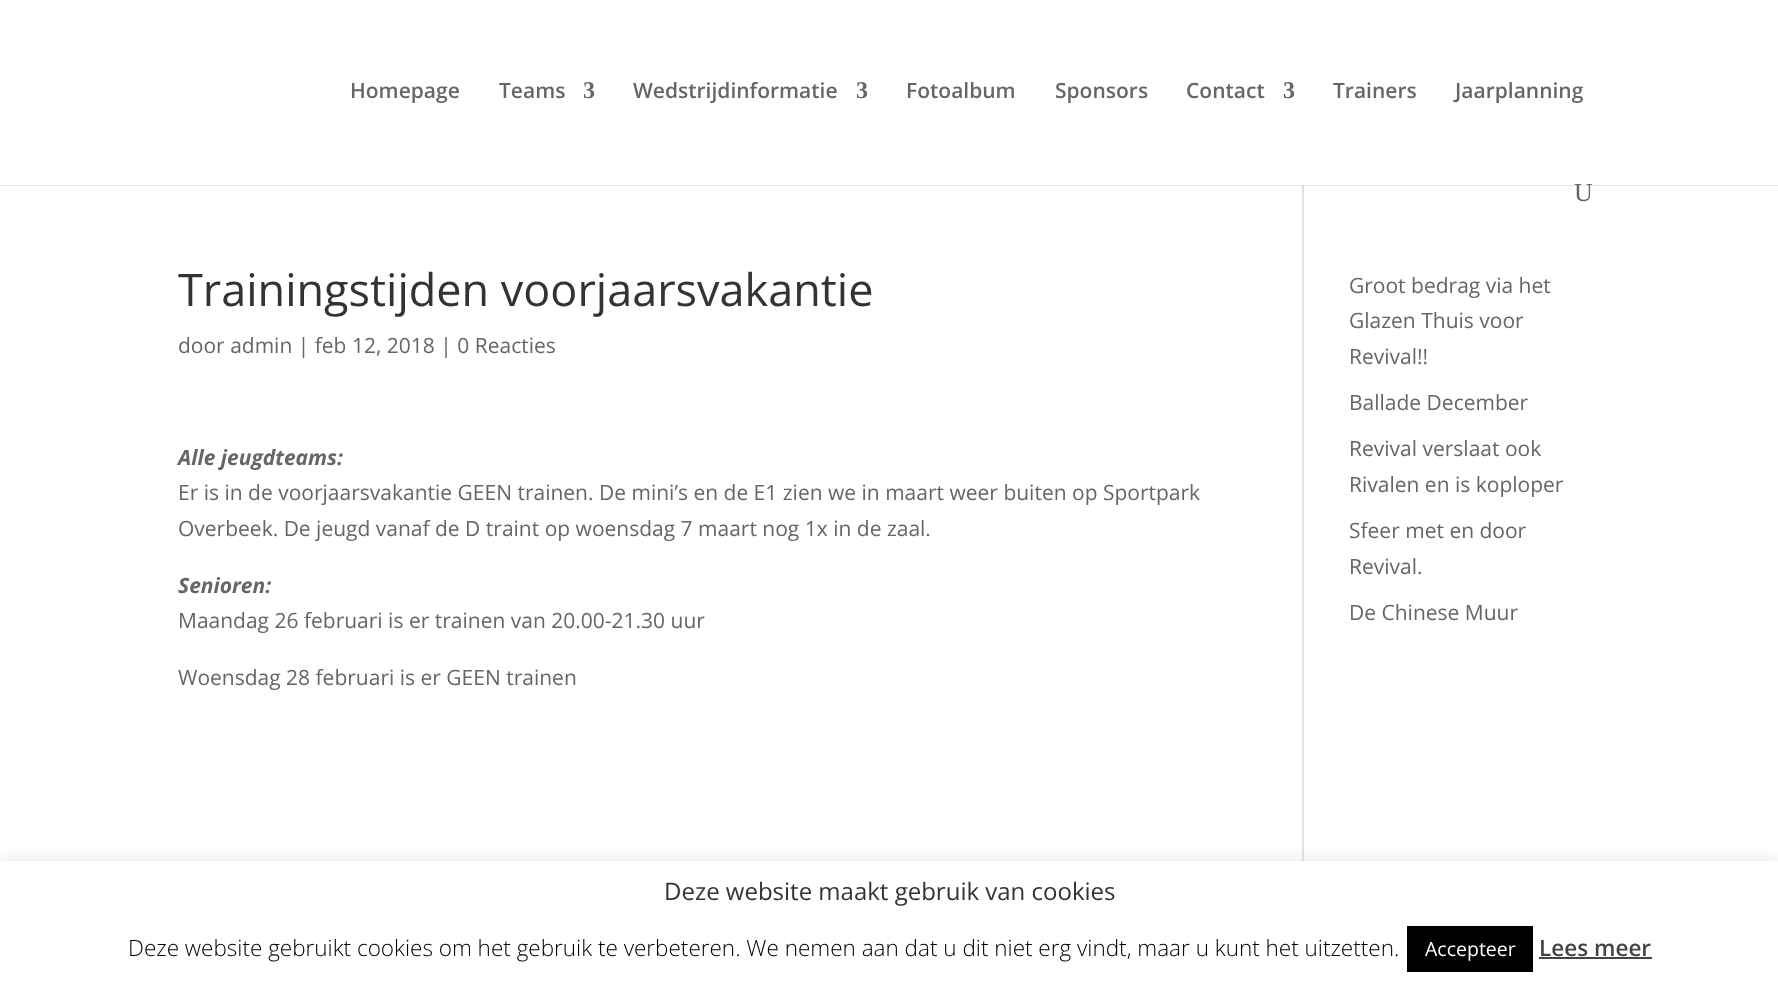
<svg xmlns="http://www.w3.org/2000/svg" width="1778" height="990">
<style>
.a{font:600 21px Open Sans;fill:#666}
.b{font:bold 24px Liberation Serif;fill:#666}
.c{font:26px Liberation Serif;fill:#666}
.d{font:45px Open Sans;fill:#333}
.e{font:21px Open Sans;fill:#666}
.f{font:italic bold 21px Open Sans;fill:#666}
.g{font:24px Open Sans;fill:#333}
.h{font:300 22.5px Open Sans;fill:#000}
.i{font:19.5px Open Sans;fill:#fff}
.j{font:600 22.5px Open Sans;fill:#444}
</style>
<rect width="100%" height="100%" fill="#fff"/>
<path fill="#e6e6e6" d="M0 185h1778v1H0z"/>
<path fill="#e2e2e2" d="M1302 180h2v681H1302z"/>
<path fill="#fff" d="M1302 180h2v5H1302z"/>
<path fill="#cbcbcb" d="M1302 185h2v1H1302z"/>
<path fill="#acabab4d" filter="blur(7.5px)" d="M0 860h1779v129H0z"/>
<path fill="#fff" d="M0 861h1778v129H0z"/>
<path fill="#000" d="M1407 926h126v46H1407z"/>
<path fill="#444" d="M1539 957h113v2H1539z"/>
<text class="a" x="350" y="98">Homepage</text>
<text class="a" x="499" y="98">Teams</text>
<text class="b" x="583" y="98">3</text>
<text class="a" x="633" y="98">Wedstrijdinformatie</text>
<text class="b" x="856" y="98">3</text>
<text class="a" x="906" y="98">Fotoalbum</text>
<text class="a" x="1055" y="98">Sponsors</text>
<text class="a" x="1186" y="98">Contact</text>
<text class="b" x="1283" y="98">3</text>
<text class="a" x="1333" y="98">Trainers</text>
<text class="a" x="1455" y="98">Jaarplanning</text>
<text class="c" x="1574" y="201">U</text>
<text class="d" x="178" y="306">Trainingstijden voorjaarsvakantie</text>
<text class="e" x="178" y="353">door admin | feb 12, 2018 | 0 Reacties</text>
<text class="f" x="178" y="465">Alle jeugdteams:</text>
<text class="e" x="178" y="500">Er is in de voorjaarsvakantie GEEN trainen. De mini’s en de E1 zien we in maart weer buiten op Sportpark</text>
<text class="e" x="178" y="536">Overbeek. De jeugd vanaf de D traint op woensdag 7 maart nog 1x in de zaal.</text>
<text class="f" x="178" y="593">Senioren:</text>
<text class="e" x="178" y="628">Maandag 26 februari is er trainen van 20.00-21.30 uur</text>
<text class="e" x="178" y="685">Woensdag 28 februari is er GEEN trainen</text>
<text class="e" x="1349" y="293">Groot bedrag via het</text>
<text class="e" x="1349" y="328">Glazen Thuis voor</text>
<text class="e" x="1349" y="364">Revival!!</text>
<text class="e" x="1349" y="410">Ballade December</text>
<text class="e" x="1349" y="456">Revival verslaat ook</text>
<text class="e" x="1349" y="492">Rivalen en is koploper</text>
<text class="e" x="1349" y="538">Sfeer met en door</text>
<text class="e" x="1349" y="574">Revival.</text>
<text class="e" x="1349" y="620">De Chinese Muur</text>
<text class="g" x="664" y="900">Deze website maakt gebruik van cookies</text>
<text class="h" x="128" y="956">Deze website gebruikt cookies om het gebruik te verbeteren. We nemen aan dat u dit niet erg vindt, maar u kunt het uitzetten.</text>
<text class="i" x="1425" y="956">Accepteer</text>
<text class="j" x="1539" y="956">Lees meer</text>
</svg>
